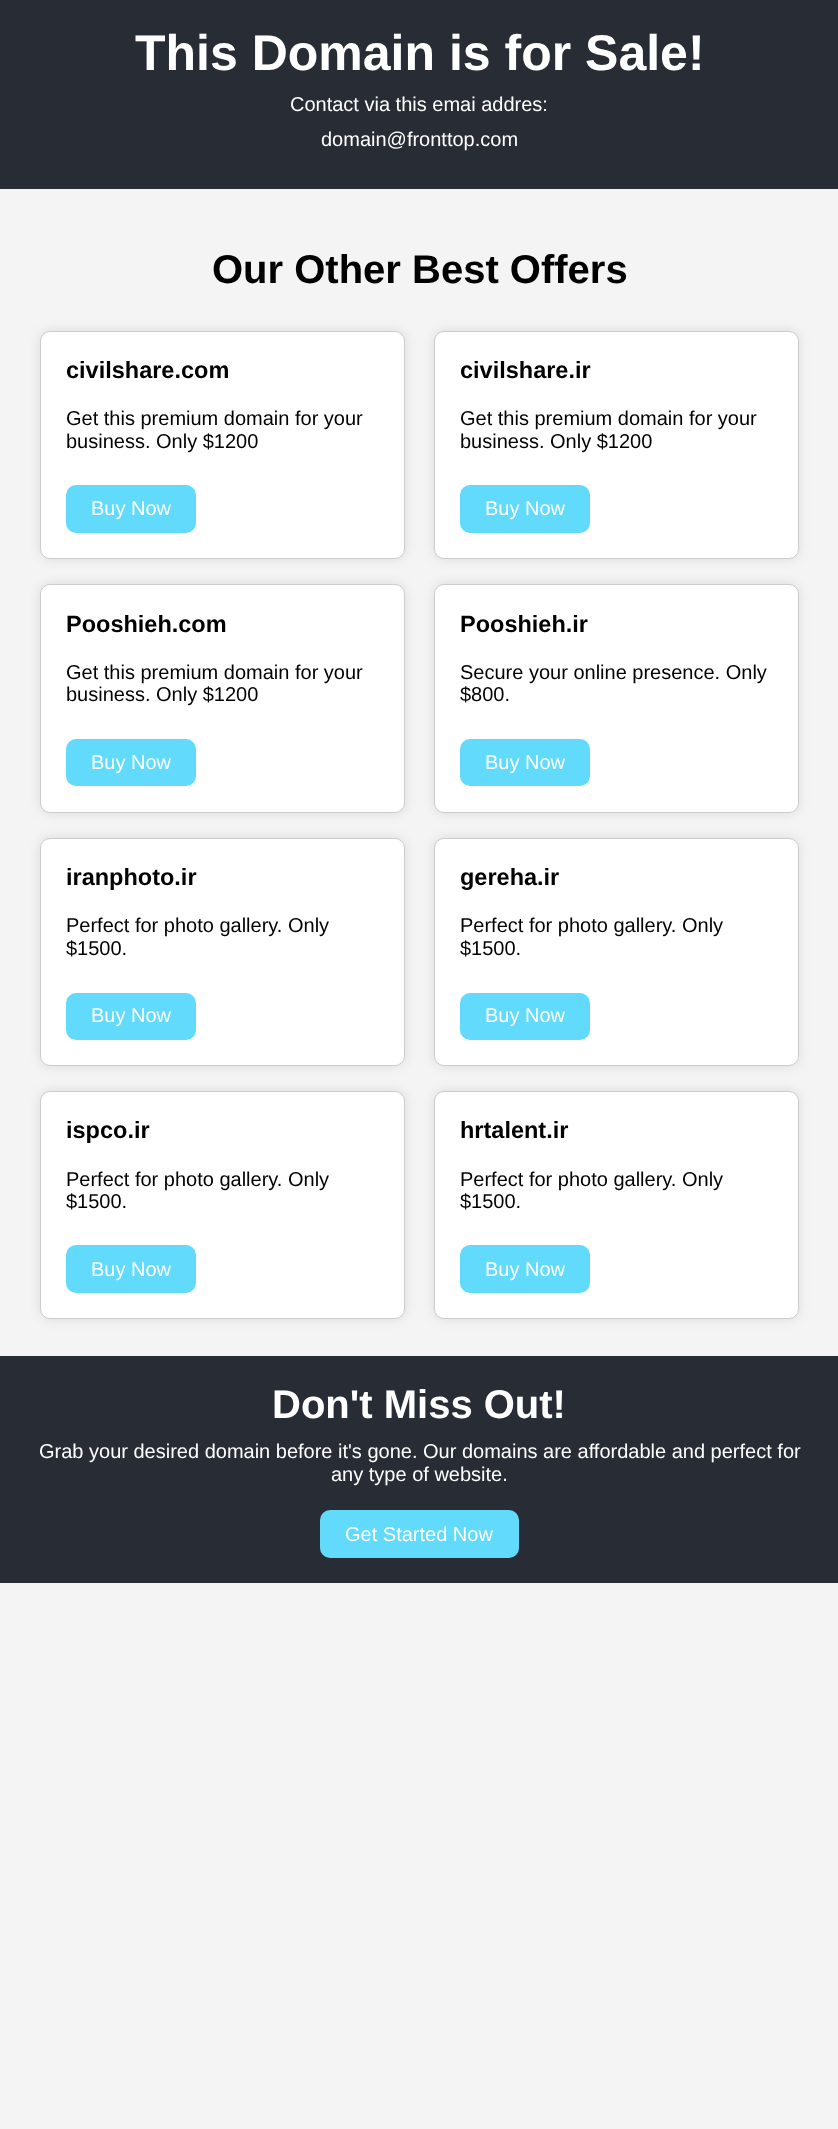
<svg xmlns="http://www.w3.org/2000/svg" width="838" height="2129">
<style>
.a{font:bold 50px Liberation Sans;fill:#fff}
.b{font:20px Liberation Sans;fill:#fff}
.c{font:bold 40px Liberation Sans;fill:#000}
.d{font:bold 23.5px Liberation Sans;fill:#000}
.e{font:20px Liberation Sans;fill:#000}
.f{font:bold 40px Liberation Sans;fill:#fff}
</style>
<rect width="100%" height="100%" fill="#f4f4f4"/>
<path fill="#282c34" d="M0 0h838v189H0z"/>
<rect fill="#0000001a" filter="blur(6px)" x="40" y="331" width="365" height="228" rx="10"/>
<rect fill="#fff" stroke="#ccc" x="40.5" y="331.5" width="364" height="227" rx="9.5"/>
<rect fill="#61dafb" x="66" y="485" width="130" height="48" rx="10"/>
<rect fill="#0000001a" filter="blur(6px)" x="434" y="331" width="365" height="228" rx="10"/>
<rect fill="#fff" stroke="#ccc" x="434.5" y="331.5" width="364" height="227" rx="9.5"/>
<rect fill="#61dafb" x="460" y="485" width="130" height="48" rx="10"/>
<rect fill="#0000001a" filter="blur(6px)" x="40" y="584" width="365" height="229" rx="10"/>
<rect fill="#fff" stroke="#ccc" x="40.5" y="584.5" width="364" height="228" rx="9.5"/>
<rect fill="#61dafb" x="66" y="739" width="130" height="47" rx="10"/>
<rect fill="#0000001a" filter="blur(6px)" x="434" y="584" width="365" height="229" rx="10"/>
<rect fill="#fff" stroke="#ccc" x="434.5" y="584.5" width="364" height="228" rx="9.5"/>
<rect fill="#61dafb" x="460" y="739" width="130" height="47" rx="10"/>
<rect fill="#0000001a" filter="blur(6px)" x="40" y="838" width="365" height="228" rx="10"/>
<rect fill="#fff" stroke="#ccc" x="40.5" y="838.5" width="364" height="227" rx="9.5"/>
<rect fill="#61dafb" x="66" y="993" width="130" height="47" rx="10"/>
<rect fill="#0000001a" filter="blur(6px)" x="434" y="838" width="365" height="228" rx="10"/>
<rect fill="#fff" stroke="#ccc" x="434.5" y="838.5" width="364" height="227" rx="9.5"/>
<rect fill="#61dafb" x="460" y="993" width="130" height="47" rx="10"/>
<rect fill="#0000001a" filter="blur(6px)" x="40" y="1091" width="365" height="228" rx="10"/>
<rect fill="#fff" stroke="#ccc" x="40.5" y="1091.5" width="364" height="227" rx="9.5"/>
<rect fill="#61dafb" x="66" y="1245" width="130" height="48" rx="10"/>
<rect fill="#0000001a" filter="blur(6px)" x="434" y="1091" width="365" height="228" rx="10"/>
<rect fill="#fff" stroke="#ccc" x="434.5" y="1091.5" width="364" height="227" rx="9.5"/>
<rect fill="#61dafb" x="460" y="1245" width="130" height="48" rx="10"/>
<path fill="#282c34" d="M0 1356h838v227H0z"/>
<rect fill="#61dafb" x="320" y="1510" width="199" height="48" rx="10"/>
<text class="a" x="135" y="70">This Domain is for Sale!</text>
<text class="b" x="290" y="111">Contact via this emai addres:</text>
<text class="b" x="321" y="146">domain@fronttop.com</text>
<text class="c" x="212" y="283">Our Other Best Offers</text>
<text class="d" x="66" y="378">civilshare.com</text>
<text class="e" x="66" y="425">Get this premium domain for your</text>
<text class="e" x="66" y="448">business. Only $1200</text>
<text class="b" x="91" y="515">Buy Now</text>
<text class="d" x="460" y="378">civilshare.ir</text>
<text class="e" x="460" y="425">Get this premium domain for your</text>
<text class="e" x="460" y="448">business. Only $1200</text>
<text class="b" x="485" y="515">Buy Now</text>
<text class="d" x="66" y="632">Pooshieh.com</text>
<text class="e" x="66" y="679">Get this premium domain for your</text>
<text class="e" x="66" y="701">business. Only $1200</text>
<text class="b" x="91" y="769">Buy Now</text>
<text class="d" x="460" y="632">Pooshieh.ir</text>
<text class="e" x="460" y="679">Secure your online presence. Only</text>
<text class="e" x="460" y="701">$800.</text>
<text class="b" x="485" y="769">Buy Now</text>
<text class="d" x="66" y="885">iranphoto.ir</text>
<text class="e" x="66" y="932">Perfect for photo gallery. Only</text>
<text class="e" x="66" y="955">$1500.</text>
<text class="b" x="91" y="1022">Buy Now</text>
<text class="d" x="460" y="885">gereha.ir</text>
<text class="e" x="460" y="932">Perfect for photo gallery. Only</text>
<text class="e" x="460" y="955">$1500.</text>
<text class="b" x="485" y="1022">Buy Now</text>
<text class="d" x="66" y="1138">ispco.ir</text>
<text class="e" x="66" y="1186">Perfect for photo gallery. Only</text>
<text class="e" x="66" y="1208">$1500.</text>
<text class="b" x="91" y="1276">Buy Now</text>
<text class="d" x="460" y="1138">hrtalent.ir</text>
<text class="e" x="460" y="1186">Perfect for photo gallery. Only</text>
<text class="e" x="460" y="1208">$1500.</text>
<text class="b" x="485" y="1276">Buy Now</text>
<text class="f" x="272" y="1418">Don't Miss Out!</text>
<text class="b" x="39" y="1458">Grab your desired domain before it's gone. Our domains are affordable and perfect for</text>
<text class="b" x="331" y="1481">any type of website.</text>
<text class="b" x="345" y="1541">Get Started Now</text>
</svg>
